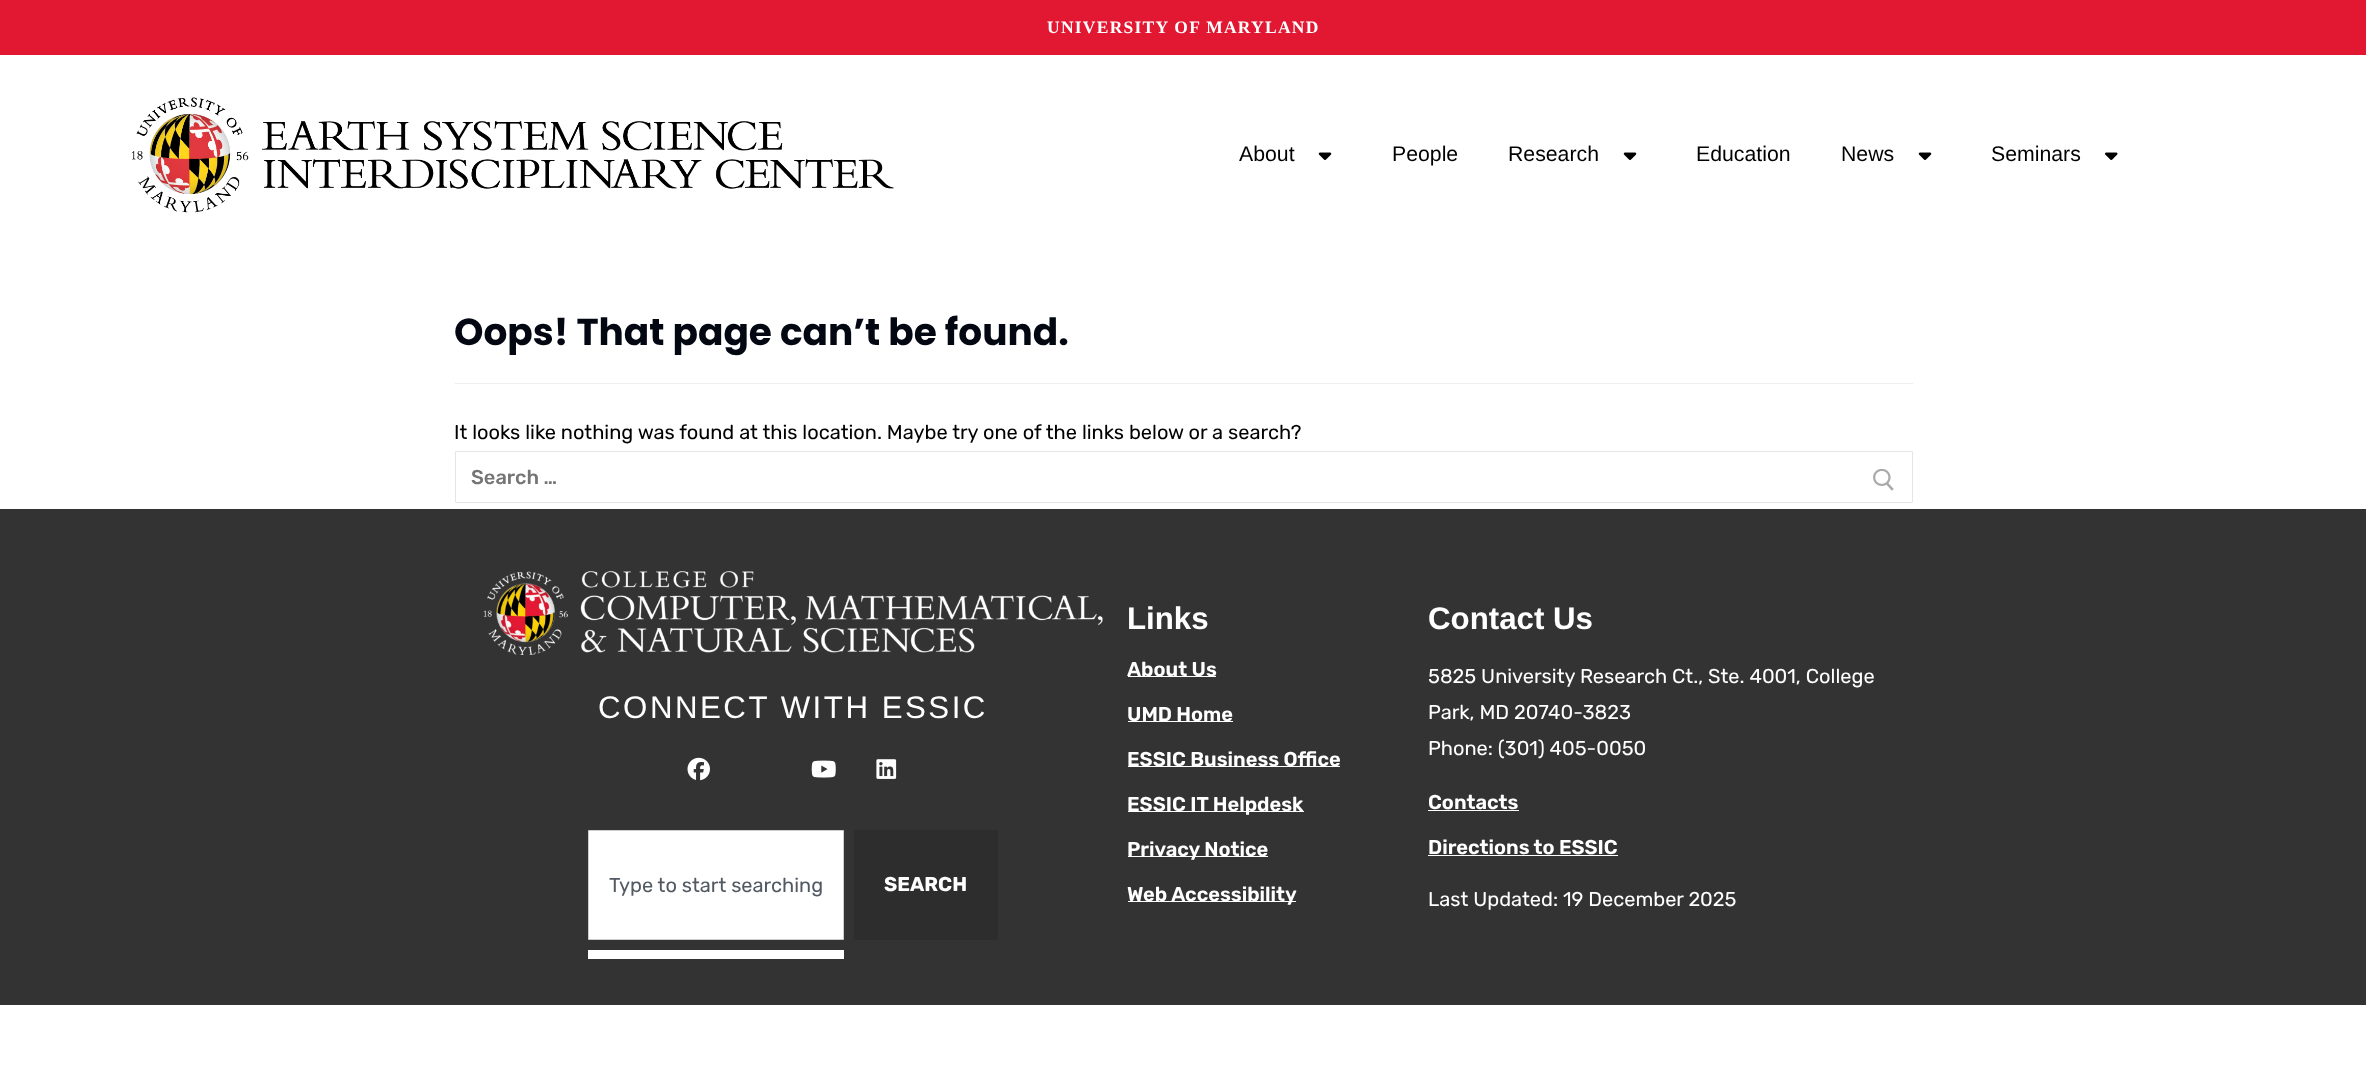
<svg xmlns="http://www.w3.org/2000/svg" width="2366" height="1083">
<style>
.a{font:bold 17.5px Liberation Serif;letter-spacing:1.25px;fill:#fff}
.b{font:21.25px Liberation Sans;fill:#000}
.c{font:bold 37.5px Poppins;fill:#030712}
.d{font:20px Rubik;fill:#000}
.e{font:500 20px Rubik;fill:#757575}
.f{font:31.25px Liberation Sans;letter-spacing:2.5px;fill:#fff}
.g{font:20px Rubik;fill:#515962}
.h{font:bold 20px Rubik;fill:#fff}
.i{font:bold 31.25px Liberation Sans;fill:#fff}
.j{font:600 20px Rubik;fill:#fff}
.k{font:20px Rubik;fill:#fff}
</style>
<rect width="100%" height="100%" fill="#fff"/>
<path fill="#e21833" d="M0 0h2366v55H0z"/>
<image href="1.png" x="131" y="97" width="763" height="116"/>
<image href="2.png" x="1318" y="152" width="14" height="8"/>
<image href="2.png" x="1623" y="152" width="14" height="8"/>
<image href="2.png" x="1918" y="152" width="14" height="8"/>
<image href="3.png" x="2105" y="152" width="13" height="8"/>
<path fill="#eee" d="M455 383h1458v1H455z"/>
<rect fill="none" stroke="#e5e5e5" x="455.5" y="451.5" width="1457" height="51" rx="0.5"/>
<image href="4.png" x="1873" y="469" width="21" height="22"/>
<path fill="#333" d="M0 509h2366v496H0z"/>
<image href="5.png" x="483" y="571" width="620" height="84"/>
<image href="6.png" x="687" y="757" width="23" height="24"/>
<image href="7.png" x="811" y="760" width="25" height="18"/>
<image href="8.png" x="876" y="759" width="21" height="20"/>
<path fill="#fff" stroke="#cdcdcd" d="M588.5 830.5h255v109H588.5z"/>
<path fill="#fff" d="M588 950h256v9H588z"/>
<path fill="#2d2d2d" d="M854 830h144v110H854z"/>
<path fill="#fff" d="M1128 676h88v1H1128z"/>
<path fill="#fff" d="M1128 721h105v1H1128z"/>
<path fill="#fff" d="M1128 766h212v1H1128z"/>
<path fill="#fff" d="M1128 811h176v1H1128z"/>
<path fill="#fff" d="M1128 856h140v1H1128z"/>
<path fill="#fff" d="M1128 901h168v1H1128z"/>
<path fill="#fff" d="M1428 810h91v1H1428z"/>
<path fill="#fff" d="M1428 855h190v1H1428z"/>
<text class="a" x="1047" y="33">UNIVERSITY OF MARYLAND</text>
<text class="b" x="1239" y="161">About</text>
<text class="b" x="1392" y="161">People</text>
<text class="b" x="1508" y="161">Research</text>
<text class="b" x="1696" y="161">Education</text>
<text class="b" x="1841" y="161">News</text>
<text class="b" x="1991" y="161">Seminars</text>
<text class="c" x="454" y="345">Oops! That page can’t be found.</text>
<text class="d" x="454" y="439">It looks like nothing was found at this location. Maybe try one of the links below or a search?</text>
<text class="e" x="471" y="484">Search …</text>
<text class="f" x="598" y="718">CONNECT WITH ESSIC</text>
<text class="g" x="609" y="892">Type to start searching</text>
<text class="h" x="884" y="891">SEARCH</text>
<text class="i" x="1127" y="629">Links</text>
<text class="j" x="1127" y="676">About Us</text>
<text class="j" x="1127" y="721">UMD Home</text>
<text class="j" x="1127" y="766">ESSIC Business Office</text>
<text class="j" x="1127" y="811">ESSIC IT Helpdesk</text>
<text class="j" x="1127" y="856">Privacy Notice</text>
<text class="j" x="1127" y="901">Web Accessibility</text>
<text class="i" x="1428" y="629">Contact Us</text>
<text class="k" x="1428" y="683">5825 University Research Ct., Ste. 4001, College</text>
<text class="k" x="1428" y="719">Park, MD 20740-3823</text>
<text class="k" x="1428" y="755">Phone: (301) 405-0050</text>
<text class="j" x="1428" y="809">Contacts</text>
<text class="j" x="1428" y="854">Directions to ESSIC</text>
<text class="k" x="1428" y="906">Last Updated: 19 December 2025</text>
</svg>
